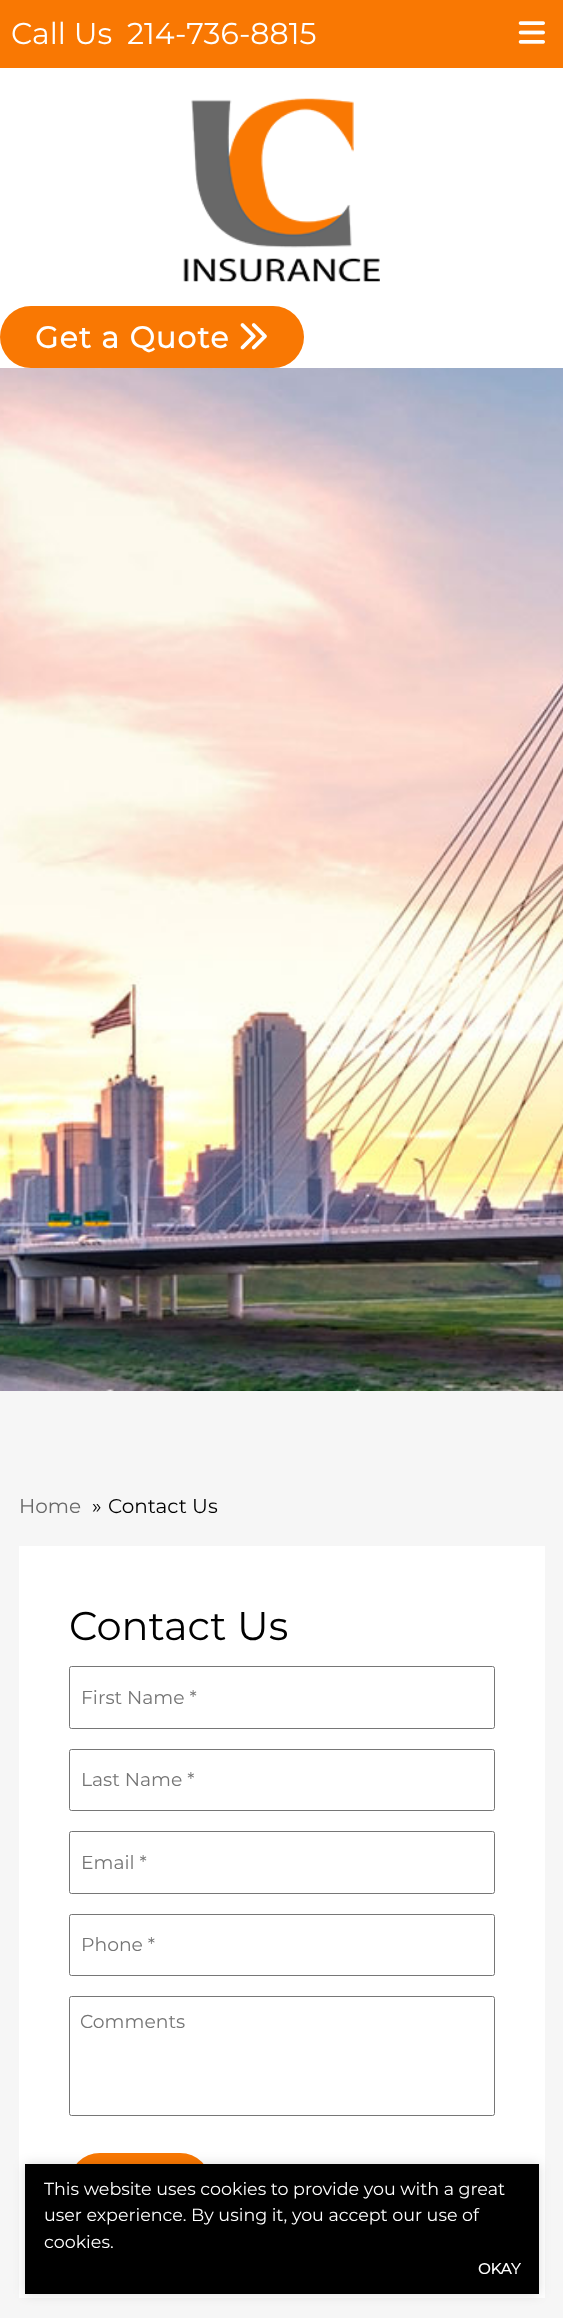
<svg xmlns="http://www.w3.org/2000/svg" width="563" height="2318">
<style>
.a{font:100 30px Montserrat;fill:#fff}
.b{font:bold 30px Montserrat;letter-spacing:1.25px;fill:#fff}
.c{font:100 20px Montserrat;fill:#686868}
.d{font:100 20px Montserrat;fill:#000}
.e{font:100 40px Montserrat;fill:#000}
.f{font:100 18.75px Montserrat;fill:#757575}
.g{font:100 17.5px Montserrat;fill:#fff}
.h{font:bold 15px Montserrat;fill:#fff}
</style>
<rect width="100%" height="100%" fill="#fff"/>
<path fill="#f97803" d="M0 0h563v68H0z"/>
<image href="1.png" x="518" y="21" width="27" height="23"/>
<image href="2.png" x="183" y="98" width="197" height="184"/>
<rect fill="#f97803" y="306" width="304" height="62" rx="31"/>
<image href="3.png" x="240" y="323" width="27" height="27"/>
<image href="4.png" x="0" y="368" width="563" height="1023"/>
<path fill="#f6f6f6" d="M0 1391h563v927H0z"/>
<path fill="#fff" d="M19 1546h526v752H19z"/>
<rect fill="none" stroke="#767676" x="69.5" y="1666.5" width="425" height="62" rx="2"/>
<rect fill="none" stroke="#767676" x="69.5" y="1749.5" width="425" height="61" rx="2"/>
<rect fill="none" stroke="#767676" x="69.5" y="1831.5" width="425" height="62" rx="2"/>
<rect fill="none" stroke="#767676" x="69.5" y="1914.5" width="425" height="61" rx="2"/>
<rect fill="none" stroke="#767676" x="69.5" y="1996.5" width="425" height="119" rx="2"/>
<rect fill="#f97803" x="69" y="2153" width="142" height="65" rx="31"/>
<path fill="#00000026" filter="blur(6px)" d="M25 2164h514v130H25z"/>
<path fill="#000" d="M25 2164h514v130H25z"/>
<text class="a" x="11" y="44">Call Us</text>
<text class="a" x="127" y="44">214-736-8815</text>
<text class="b" x="35" y="348">Get a Quote</text>
<text class="c" x="19" y="1513">Home</text>
<text class="d" x="92" y="1513">»</text>
<text class="d" x="108" y="1513">Contact Us</text>
<text class="e" x="69" y="1640">Contact Us</text>
<text class="f" x="81" y="1704">First Name *</text>
<text class="f" x="81" y="1786">Last Name *</text>
<text class="f" x="81" y="1869">Email *</text>
<text class="f" x="81" y="1951">Phone *</text>
<text class="f" x="80" y="2028">Comments</text>
<text class="g" x="44" y="2195">This website uses cookies to provide you with a great</text>
<text class="g" x="44" y="2221">user experience. By using it, you accept our use of</text>
<text class="g" x="44" y="2248">cookies.</text>
<text class="h" x="478" y="2274">OKAY</text>
</svg>
